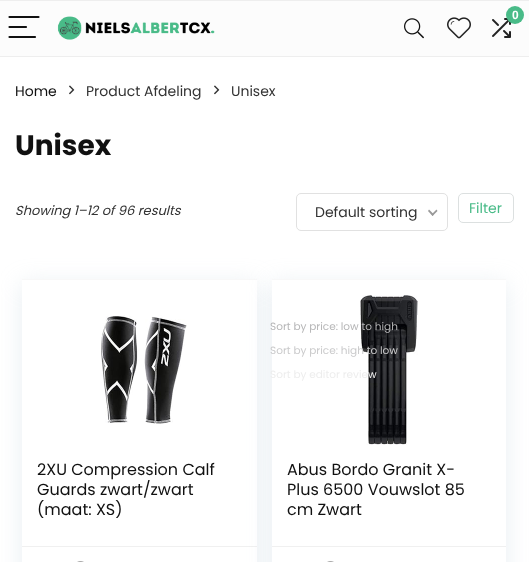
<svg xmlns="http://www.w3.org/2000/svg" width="529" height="562">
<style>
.a{font:bold 12px Liberation Sans;fill:#fff}
.b{font:14px Poppins;fill:#111}
.c{font:14px Poppins;fill:#333}
.d{font:bold 28px Poppins;fill:#111}
.e{font:italic 13px Poppins;fill:#333}
.f{font:10.5px Poppins;fill:#b6b6b7}
.g{font:10.5px Poppins;fill:#cacacb}
.h{font:10.5px Poppins;fill:#ededed}
.i{font:14px Poppins;fill:#49bb88}
.j{font:16px Poppins;fill:#111}
</style>
<defs>
<clipPath id="clip1"><path d="M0 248h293v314h-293zm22 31h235v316h-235z" clip-rule="evenodd"/></clipPath>
</defs>
<rect width="100%" height="100%" fill="#fff"/>
<path fill="#fcfcfc" d="M0 1h529v55H0z"/>
<path fill="#eee" d="M0 0h529v1H0z"/>
<path fill="#eee" d="M0 56h529v1H0z"/>
<path fill="none" stroke="#111" stroke-width="2.2" stroke-linecap="round" d="M9.5 17h29m-29 10h16.5m-16.5 10h25.5"/>
<image href="1.png" x="57" y="16" width="158" height="24"/>
<image href="2.png" x="492" y="18" width="19" height="20"/>
<circle fill="#49bb88" cx="515" cy="15" r="9"/>
<image href="3.png" x="404" y="18" width="20" height="21"/>
<image href="4.png" x="447" y="17" width="24" height="22"/>
<image href="5.png" x="69" y="85" width="6" height="10"/>
<image href="5.png" x="214" y="85" width="6" height="10"/>
<rect fill="none" stroke="#e1e1e1" x="296.5" y="193.5" width="151" height="37" rx="4.5"/>
<path fill="#999" d="M436.5 209.5l1 1.5l-5 5l-1-1.5z"/>
<path fill="#999" d="M429 209.5l5 5l-1.5 1.5l-4.5-5z"/>
<rect fill="none" stroke="#dce0e0" x="458.5" y="193.5" width="55" height="29" rx="4.5"/>
<g clip-path="url(#clip1)">
<path fill="#bccfdb59" filter="blur(11.5px)" d="M22 284h235v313H22z"/>
</g>
<path fill="#f8f8f8" d="M22 279h235v1H22z"/>
<image href="6.png" x="101" y="315" width="86" height="109"/>
<path fill="#f0f0f0" d="M22 546h235v1H22z"/>
<image href="7.png" x="77" y="561" width="7" height="1"/>
<path fill="#bccfdb59" filter="blur(11.5px)" d="M272 284h234v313H272z"/>
<path fill="#fff" d="M272 280h234v282H272z"/>
<path fill="#f8f8f8" d="M272 279h234v1H272z"/>
<image href="8.png" x="360" y="295" width="58" height="150"/>
<path fill="#f0f0f0" d="M272 546h234v1H272z"/>
<image href="7.png" x="327" y="561" width="7" height="1"/>
<text class="a" x="512" y="19">0</text>
<text class="b" x="15" y="96">Home</text>
<text class="c" x="86" y="96">Product Afdeling</text>
<text class="c" x="231" y="96">Unisex</text>
<text class="d" x="15" y="155">Unisex</text>
<text class="e" x="15" y="215">Showing 1–12 of 96 results</text>
<text class="c" x="315" y="217">Default sorting</text>
<text class="f" x="270" y="330">Sort by price: low to high</text>
<text class="g" x="270" y="354">Sort by price: high to low</text>
<text class="h" x="270" y="378">Sort by editor review</text>
<text class="i" x="469" y="213">Filter</text>
<text class="j" x="37" y="475">2XU Compression Calf</text>
<text class="j" x="37" y="495">Guards zwart/zwart</text>
<text class="j" x="37" y="515">(maat: XS)</text>
<text class="j" x="287" y="475">Abus Bordo Granit X-</text>
<text class="j" x="287" y="495">Plus 6500 Vouwslot 85</text>
<text class="j" x="287" y="515">cm Zwart</text>
</svg>
